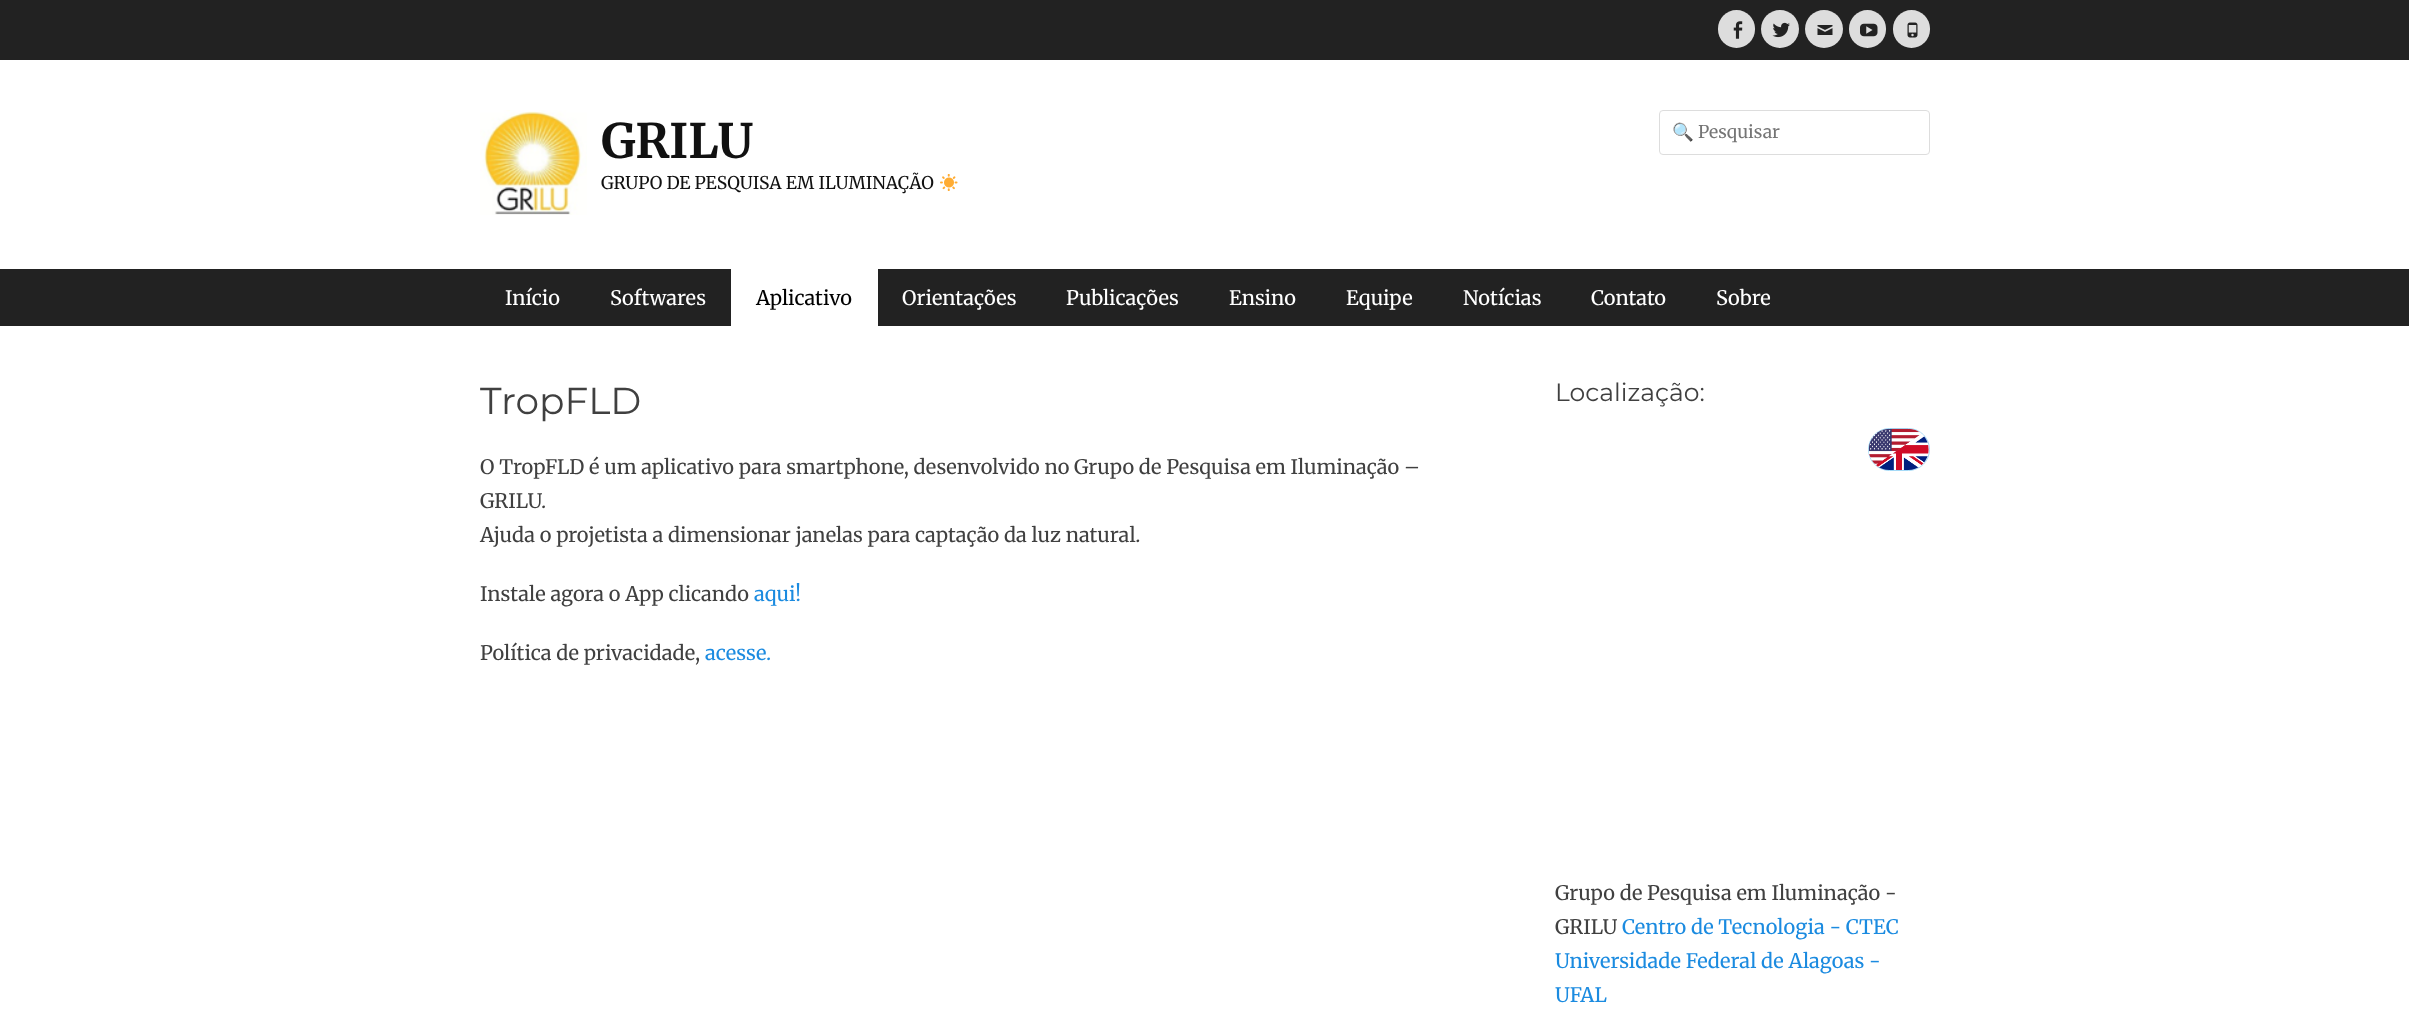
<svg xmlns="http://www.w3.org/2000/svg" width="2409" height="1026">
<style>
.a{font:bold 47.5px Merriweather;fill:#111}
.b{font:17.5px Merriweather;fill:#111}
.c{font:17.5px Noto Color Emoji;fill:#757575}
.d{font:17.5px Merriweather;fill:#757575}
.e{font:20px Merriweather;fill:#fff}
.f{font:20px Merriweather;fill:#000}
.g{font:37.5px Montserrat;fill:#404040}
.h{font:20px Merriweather;fill:#404040}
.i{font:20px Merriweather;fill:#1b8be0}
.j{font:25px Montserrat;fill:#404040}
</style>
<defs>
<clipPath id="clip1"><path d="M1673 120h226v23H1673z"/></clipPath>
</defs>
<rect width="100%" height="100%" fill="#222"/>
<rect fill="#ddd" x="1718" y="10" width="37" height="38" rx="18.5"/>
<image href="1.png" x="1733" y="21" width="10" height="18"/>
<circle fill="#ddd" cx="1780" cy="29" r="19"/>
<image href="2.png" x="1772" y="22" width="18" height="16"/>
<circle fill="#ddd" cx="1824" cy="29" r="19"/>
<image href="3.png" x="1817" y="25" width="16" height="10"/>
<rect fill="#ddd" x="1849" y="10" width="37" height="38" rx="18.5"/>
<image href="4.png" x="1860" y="23" width="18" height="14"/>
<rect fill="#ddd" x="1893" y="10" width="37" height="38" rx="18.5"/>
<image href="5.png" x="1907" y="22" width="11" height="16"/>
<path fill="#fff" d="M0 60h2409v209H0z"/>
<image href="6.png" x="480" y="110" width="107" height="105"/>
<image href="7.png" x="940" y="174" width="18" height="17"/>
<rect fill="none" stroke="#ddd" x="1659.5" y="110.5" width="270" height="44" rx="3.5"/>
<path fill="#fff" d="M731 269h147v57H731z"/>
<path fill="#fff" d="M0 326h2409v700H0z"/>
<rect fill="none" stroke="#a5daf7" x="1868.5" y="428.5" width="61" height="42" rx="21"/>
<image href="8.png" x="1868" y="428" width="61" height="42"/>
<text class="a" x="601" y="158">GRILU</text>
<text class="b" x="601" y="189">GRUPO DE PESQUISA EM ILUMINAÇÃO</text>
<g clip-path="url(#clip1)">
<text class="c" x="1672" y="138">🔍</text>
</g>
<text class="d" x="1698" y="138">Pesquisar</text>
<text class="e" x="505" y="305">Início</text>
<text class="e" x="610" y="305">Softwares</text>
<text class="f" x="756" y="305">Aplicativo</text>
<text class="e" x="902" y="305">Orientações</text>
<text class="e" x="1066" y="305">Publicações</text>
<text class="e" x="1229" y="305">Ensino</text>
<text class="e" x="1346" y="305">Equipe</text>
<text class="e" x="1463" y="305">Notícias</text>
<text class="e" x="1591" y="305">Contato</text>
<text class="e" x="1716" y="305">Sobre</text>
<text class="g" x="480" y="414">TropFLD</text>
<text class="h" x="480" y="474">O TropFLD é um aplicativo para smartphone, desenvolvido no Grupo de Pesquisa em Iluminação –</text>
<text class="h" x="480" y="508">GRILU.</text>
<text class="h" x="480" y="542">Ajuda o projetista a dimensionar janelas para captação da luz natural.</text>
<text class="h" x="480" y="601">Instale agora o App clicando</text>
<text class="i" x="754" y="601">aqui!</text>
<text class="h" x="480" y="660">Política de privacidade,</text>
<text class="i" x="705" y="660">acesse.</text>
<text class="j" x="1555" y="401">Localização:</text>
<text class="h" x="1555" y="900">Grupo de Pesquisa em Iluminação -</text>
<text class="h" x="1555" y="934">GRILU</text>
<text class="i" x="1622" y="934">Centro de Tecnologia - CTEC</text>
<text class="i" x="1555" y="968">Universidade Federal de Alagoas -</text>
<text class="i" x="1555" y="1002">UFAL</text>
</svg>
